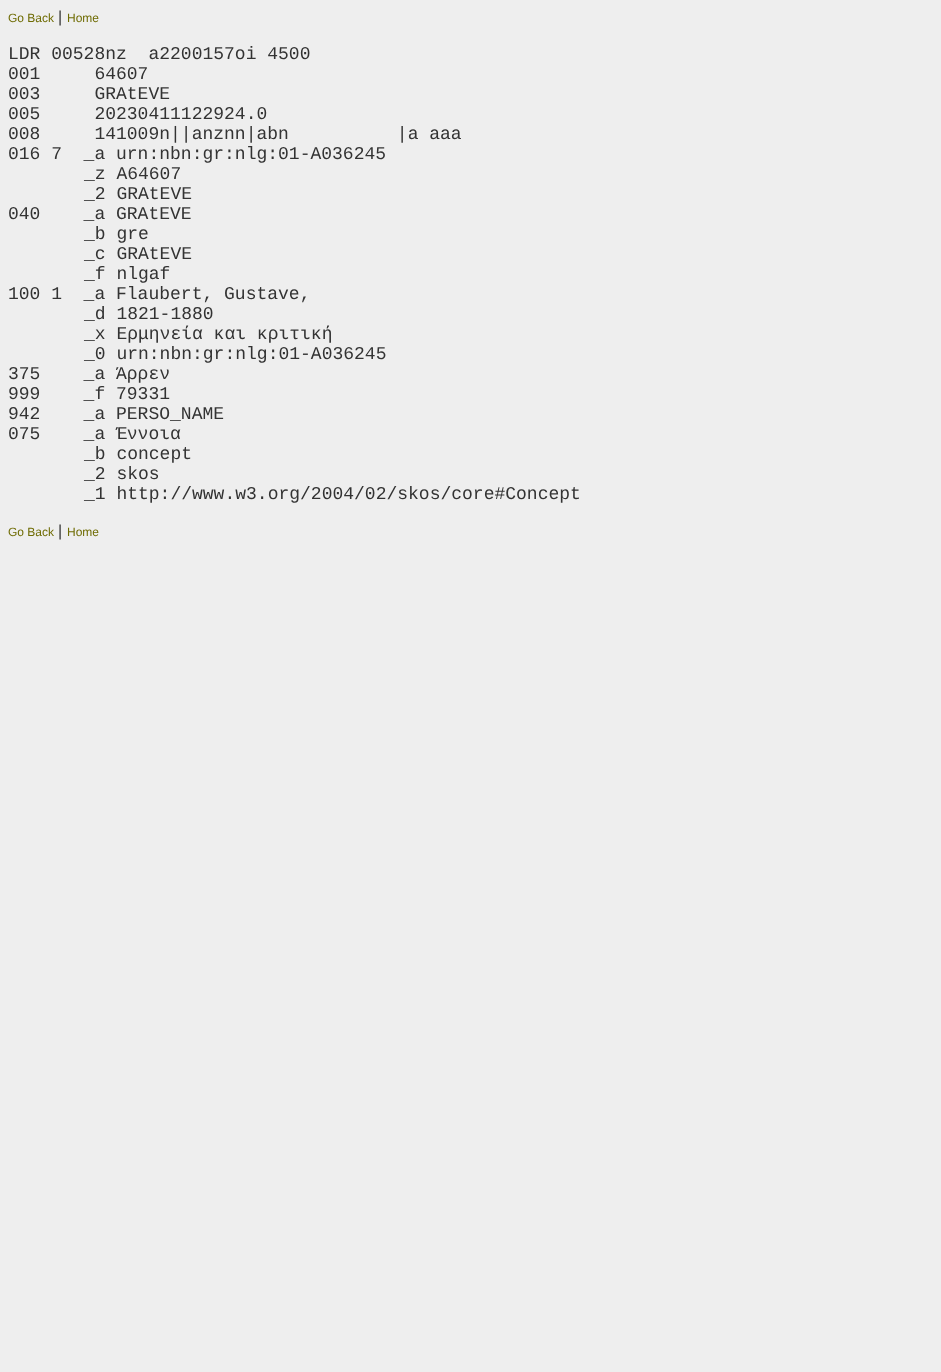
<svg xmlns="http://www.w3.org/2000/svg" width="941" height="1372">
<style>
.a{font:12px Liberation Sans;fill:#6f6c04}
.b{font:16px Liberation Sans;fill:#333}
.c{font:18px Liberation Mono;fill:#333}
</style>
<rect width="100%" height="100%" fill="#eee"/>
<text class="a" x="8" y="22">Go Back</text>
<text class="b" x="58" y="22">|</text>
<text class="a" x="67" y="22">Home</text>
<text class="c" xml:space="preserve" x="8" y="59">LDR 00528nz  a2200157oi 4500</text>
<text class="c" xml:space="preserve" x="8" y="79">001     64607</text>
<text class="c" xml:space="preserve" x="8" y="99">003     GRAtEVE</text>
<text class="c" xml:space="preserve" x="8" y="119">005     20230411122924.0</text>
<text class="c" xml:space="preserve" x="8" y="139">008     141009n||anznn|abn          |a aaa</text>
<text class="c" xml:space="preserve" x="8" y="159">016 7  _a urn:nbn:gr:nlg:01-A036245</text>
<text class="c" x="84" y="179">_z A64607</text>
<text class="c" x="84" y="199">_2 GRAtEVE</text>
<text class="c" xml:space="preserve" x="8" y="219">040    _a GRAtEVE</text>
<text class="c" x="84" y="239">_b gre</text>
<text class="c" x="84" y="259">_c GRAtEVE</text>
<text class="c" x="84" y="279">_f nlgaf</text>
<text class="c" xml:space="preserve" x="8" y="299">100 1  _a Flaubert, Gustave,</text>
<text class="c" x="84" y="319">_d 1821-1880</text>
<text class="c" x="84" y="339">_x Ερμηνεία και κριτική</text>
<text class="c" x="84" y="359">_0 urn:nbn:gr:nlg:01-A036245</text>
<text class="c" xml:space="preserve" x="8" y="379">375    _a Άρρεν</text>
<text class="c" xml:space="preserve" x="8" y="399">999    _f 79331</text>
<text class="c" xml:space="preserve" x="8" y="419">942    _a PERSO_NAME</text>
<text class="c" xml:space="preserve" x="8" y="439">075    _a Έννοια</text>
<text class="c" x="84" y="459">_b concept</text>
<text class="c" x="84" y="479">_2 skos</text>
<text class="c" x="84" y="499">_1 http://www.w3.org/2004/02/skos/core#Concept</text>
<text class="a" x="8" y="536">Go Back</text>
<text class="b" x="58" y="536">|</text>
<text class="a" x="67" y="536">Home</text>
</svg>
